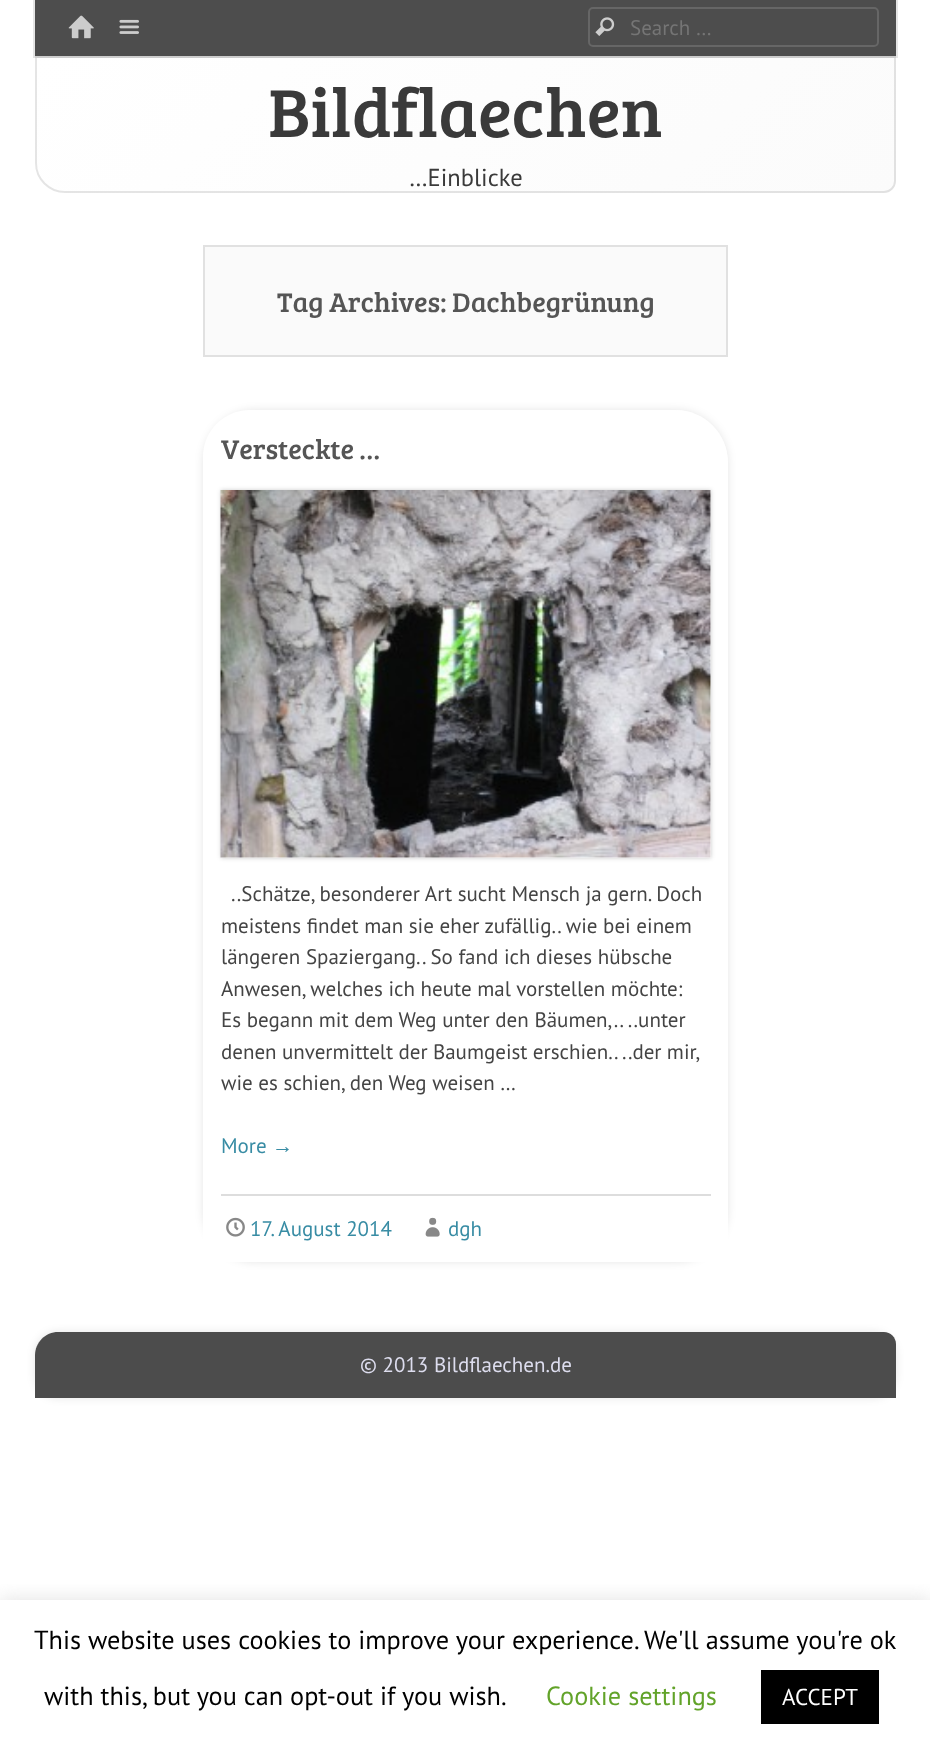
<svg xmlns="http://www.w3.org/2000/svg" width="930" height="1752">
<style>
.a{font:21px PT Sans;fill:#757575}
.b{font:70px Bree Serif;fill:#3a3a3a}
.c{font:24.5px PT Sans;fill:#3a3a3a}
.d{font:28px Bree Serif;fill:#555}
.e{font:21px PT Sans;fill:#444}
.f{font:21px PT Sans;fill:#388ca4}
.g{font:21px Liberation Sans;fill:#388ca4}
.h{font:21px PT Sans;fill:#dde}
.i{font:26.25px PT Sans;fill:#000}
.j{font:26.25px PT Sans;fill:#62a329}
.k{font:23px PT Sans;fill:#fff}
</style>
<defs>
<linearGradient id="g1" gradientUnits="userSpaceOnUse" x1="216" y1="-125" x2="715" y2="374"><stop offset="0" stop-color="#fff"/><stop offset="1" stop-color="#fbfbfb"/></linearGradient>
<clipPath id="clip1"><path d="M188 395h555v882h-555zm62 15h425c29.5 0 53 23.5 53 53v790c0 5-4 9-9 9h-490c-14.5 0-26-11.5-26-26v-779c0-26 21-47 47-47z" clip-rule="evenodd"/></clipPath>
<linearGradient id="g2" gradientUnits="userSpaceOnUse" x1="121" y1="491" x2="810" y2="1180"><stop offset="0" stop-color="#fff" stop-opacity="0"/><stop offset="0.12" stop-color="#fff" stop-opacity="0.86"/><stop offset="0.67" stop-color="#fff" stop-opacity="0.82"/><stop offset="0.88" stop-color="#fff" stop-opacity="0.81"/><stop offset="1" stop-color="#fff" stop-opacity="0"/></linearGradient>
<clipPath id="clip2"><path d="M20 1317h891v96h-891zm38 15h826c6.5 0 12 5.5 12 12v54h-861v-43c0-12.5 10.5-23 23-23z" clip-rule="evenodd"/></clipPath>
<clipPath id="clip3"><path d="M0 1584h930v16H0z"/></clipPath>
</defs>
<rect width="100%" height="100%" fill="#fff"/>
<path fill="url(#g1)" d="M35 56h861v125c0 6.5-5.5 12-12 12h-819c-16.5 0-30-13.5-30-30z"/>
<path fill="none" stroke="#0000001a" stroke-width="2" d="M36 57h859v124c0 6-5 11-11 11h-819c-16 0-29-13-29-29z"/>
<path fill="none" stroke="#0000001a" stroke-width="2" d="M34 -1h863v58H34z"/>
<path fill="#4d4d4d" d="M35 0h861v56H35z"/>
<image href="1.png" x="68" y="15" width="26" height="24"/>
<image href="2.png" x="119" y="19" width="20" height="15"/>
<rect fill="none" stroke="#666" stroke-width="2" x="589" y="8" width="289" height="38" rx="4"/>
<image href="3.png" x="595" y="17" width="20" height="19"/>
<path fill="#fafafa" stroke="#e1e1e1" stroke-width="2" d="M204 246h523v110H204z"/>
<g clip-path="url(#clip1)">
<rect fill="#0000001a" filter="blur(4.5px)" x="203" y="410" width="525" height="852" rx="53"/>
</g>
<path fill="url(#g2)" d="M250 410h425c29.5 0 53 23.5 53 53v790c0 5-4 9-9 9h-490c-14.5 0-26-11.5-26-26v-779c0-26 21-47 47-47z"/>
<path fill="#00000033" filter="blur(2px)" d="M221 490h490v368H221z"/>
<path fill="#f8f8f8" d="M221 490h490v368H221z"/>
<image href="4.png" x="220" y="490" width="491" height="368"/>
<path fill="#ddd" d="M221 1194h490v2H221z"/>
<image href="5.png" x="226" y="1217" width="19" height="20"/>
<image href="6.png" x="425" y="1217" width="15" height="20"/>
<g clip-path="url(#clip2)">
<rect fill="#0000001a" filter="blur(4.5px)" x="35" y="1332" width="861" height="66" rx="23"/>
</g>
<path fill="#000000b3" d="M58 1332h826c6.5 0 12 5.5 12 12v54h-861v-43c0-12.5 10.5-23 23-23z"/>
<g clip-path="url(#clip3)">
<path fill="#acabab4d" filter="blur(9px)" d="M0 1598h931v154H0z"/>
</g>
<path fill="#000" d="M761 1670h118v54H761z"/>
<text class="a" x="630" y="35">Search …</text>
<text class="b" x="268" y="137">Bildflaechen</text>
<text class="c" x="409" y="186">…Einblicke</text>
<text class="d" x="277" y="312">Tag Archives: Dachbegrünung</text>
<text class="d" x="221" y="459">Versteckte …</text>
<text class="e" x="231" y="901">..Schätze, besonderer Art sucht Mensch ja gern. Doch</text>
<text class="e" x="221" y="933">meistens findet man sie eher zufällig.. wie bei einem</text>
<text class="e" x="221" y="964">längeren Spaziergang.. So fand ich dieses hübsche</text>
<text class="e" x="221" y="996">Anwesen, welches ich heute mal vorstellen möchte:</text>
<text class="e" x="221" y="1027">Es begann mit dem Weg unter den Bäumen,.. ..unter</text>
<text class="e" x="221" y="1059" word-spacing="-0.25">denen unvermittelt der Baumgeist erschien.. ..der mir,</text>
<text class="e" x="221" y="1090">wie es schien, den Weg weisen …</text>
<text class="f" x="221" y="1153">More</text>
<text class="g" x="272" y="1153">→</text>
<text class="f" x="250" y="1236">17. August 2014</text>
<text class="f" x="448" y="1236">dgh</text>
<text class="h" x="360" y="1372">© 2013 Bildflaechen.de</text>
<text class="i" x="34" y="1649">This website uses cookies to improve your experience. We'll assume you're ok</text>
<text class="i" x="44" y="1705">with this, but you can opt-out if you wish.</text>
<text class="j" x="546" y="1705">Cookie settings</text>
<text class="k" x="782" y="1705">ACCEPT</text>
</svg>
